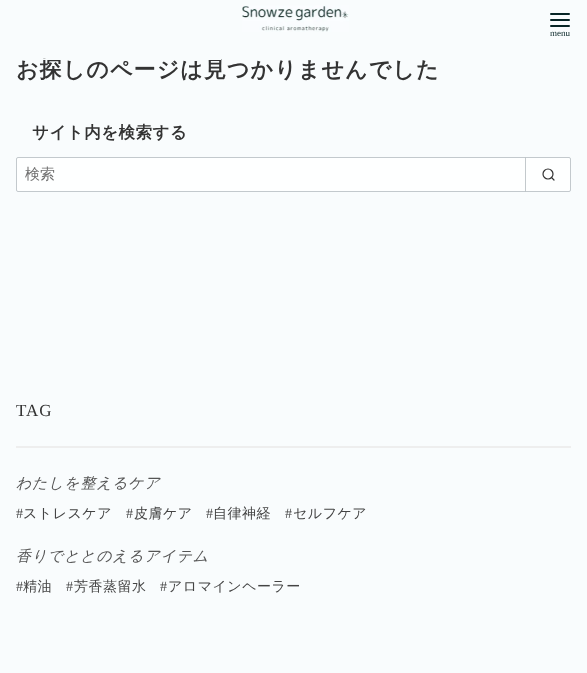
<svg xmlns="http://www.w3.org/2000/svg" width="587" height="673">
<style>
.a{font:9px Liberation Serif;fill:#082627}
.b{font:bold 22px WenQuanYi Zen Hei;letter-spacing:1.1px;fill:#333}
.c{font:bold 16.5px WenQuanYi Zen Hei;letter-spacing:0.5px;fill:#333}
.d{font:500 15px WenQuanYi Zen Hei;fill:#707070}
.e{font:17px Liberation Serif;letter-spacing:1px;fill:#333}
.f{font:italic 500 15px WenQuanYi Zen Hei;letter-spacing:0.75px;fill:#555}
.g{font:14px Liberation Serif;letter-spacing:0.5px;fill:#444}
.h{font:500 14px WenQuanYi Zen Hei;letter-spacing:0.5px;fill:#444}
</style>
<rect width="100%" height="100%" fill="#f9fcfd"/>
<image href="1.png" x="242" y="5" width="107" height="27"/>
<path fill="none" stroke="#082627" stroke-width="2" stroke-linecap="round" stroke-linejoin="round" d="M551 20h18m-18-6h18m-18 12h18"/>
<rect fill="#feffff" stroke="#c3c9cd" x="16.5" y="157.5" width="554" height="34" rx="1.5"/>
<path fill="#bdc3c7e6" d="M525 157h1v35H525z"/>
<circle fill="none" stroke="#333" stroke-width="1.2" cx="548" cy="174" r="5"/>
<path fill="none" stroke="#333" stroke-width="1.2" stroke-linecap="round" stroke-linejoin="round" d="M554 180l-2.5-2.5"/>
<path fill="#eee" d="M16 446h555v2H16z"/>
<text class="a" x="550" y="36">menu</text>
<text class="b" x="16" y="77">お探しのページは見つかりませんでした</text>
<path fill="#f9fcfd" d="M43 59h178v1H43z"/>
<text class="c" x="32" y="138">サイト内を検索する</text>
<text class="d" x="25" y="179">検索</text>
<text class="e" x="16" y="416">TAG</text>
<text class="f" x="16" y="488">わたしを整えるケア</text>
<text class="g" x="16" y="518">#</text>
<text class="h" x="23" y="518">ストレスケア</text>
<text class="g" x="126" y="518">#</text>
<text class="h" x="134" y="518">皮膚ケア</text>
<text class="g" x="206" y="518">#</text>
<text class="h" x="213" y="518">自律神経</text>
<text class="g" x="285" y="518">#</text>
<text class="h" x="293" y="518">セルフケア</text>
<text class="f" x="16" y="561">香りでととのえるアイテム</text>
<text class="g" x="16" y="591">#</text>
<text class="h" x="23" y="591">精油</text>
<text class="g" x="66" y="591">#</text>
<text class="h" x="74" y="591">芳香蒸留水</text>
<text class="g" x="160" y="591">#</text>
<text class="h" x="168" y="591">アロマインヘーラー</text>
</svg>
